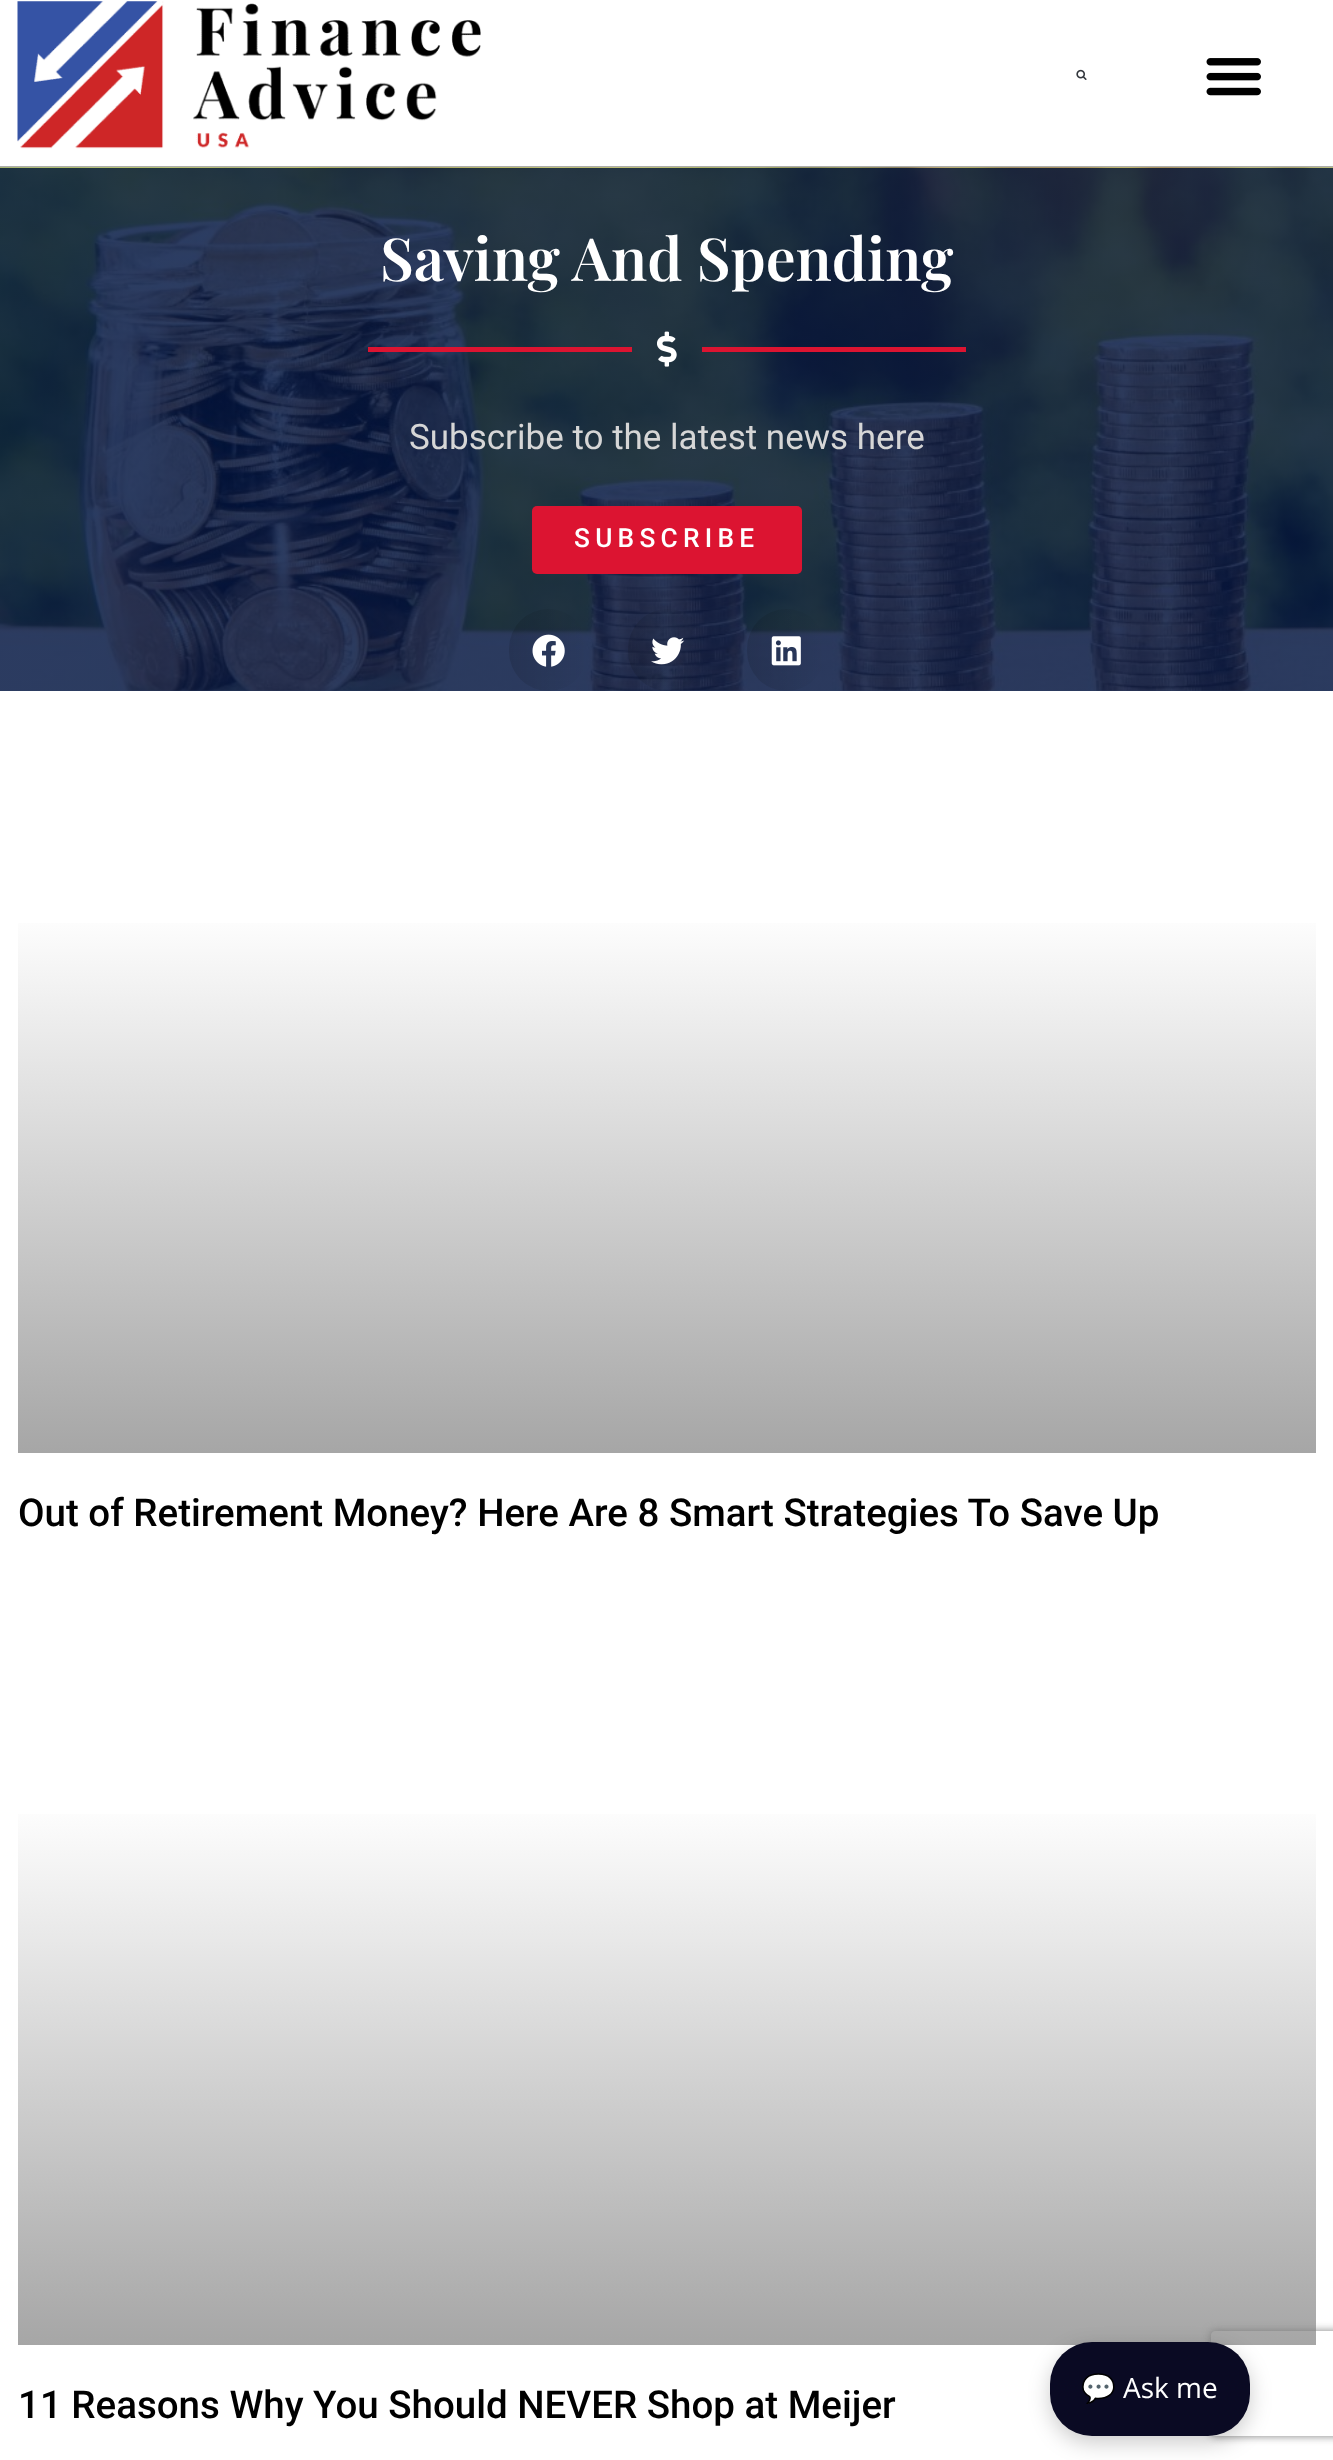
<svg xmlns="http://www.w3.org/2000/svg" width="1333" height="2460">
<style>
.a{font:600 59.5px Playfair Display;fill:#fff}
.b{font:35px Roboto;fill:#d6d6d6}
.c{font:500 26.25px Roboto;letter-spacing:5.25px;fill:#fff}
.d{font:500 38.5px Roboto;fill:#000}
.e{font:28px Noto Color Emoji;fill:#fff}
.f{font:28px Open Sans;fill:#fff}
</style>
<defs>
<linearGradient id="g1" gradientUnits="userSpaceOnUse" x1="147" y1="-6.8" x2="1187" y2="866"><stop offset="0" stop-color="#011542" stop-opacity="0"/><stop offset="0" stop-color="#011542" stop-opacity="0.83"/></linearGradient>
<linearGradient id="g2" gradientUnits="userSpaceOnUse" x1="509" y1="650" x2="588" y2="650"><stop offset="0" stop-color="#000" stop-opacity="0.12"/><stop offset="1" stop-color="#000" stop-opacity="0"/></linearGradient>
<linearGradient id="g3" gradientUnits="userSpaceOnUse" x1="628" y1="650" x2="707" y2="650"><stop offset="0" stop-color="#000" stop-opacity="0.12"/><stop offset="1" stop-color="#000" stop-opacity="0"/></linearGradient>
<linearGradient id="g4" gradientUnits="userSpaceOnUse" x1="747" y1="650" x2="826" y2="650"><stop offset="0" stop-color="#000" stop-opacity="0.12"/><stop offset="1" stop-color="#000" stop-opacity="0"/></linearGradient>
<linearGradient id="g5" gradientUnits="userSpaceOnUse" x1="667" y1="1453" x2="667" y2="726"><stop offset="0" stop-color="#a6a6a6"/><stop offset="0.75" stop-color="#fff"/></linearGradient>
<linearGradient id="g6" gradientUnits="userSpaceOnUse" x1="667" y1="2345" x2="667" y2="1617"><stop offset="0" stop-color="#a6a6a6"/><stop offset="0.75" stop-color="#fff"/></linearGradient>
<clipPath id="clip1"><path d="M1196 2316h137v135h-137zm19 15h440c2 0 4 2 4 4v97c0 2-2 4-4 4h-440c-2 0-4-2-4-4v-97c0-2 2-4 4-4z" clip-rule="evenodd"/></clipPath>
</defs>
<rect width="100%" height="100%" fill="#fff"/>
<path fill="#acacac" d="M0 166h1333v2H0z"/>
<image href="1.png" x="17" y="1" width="464" height="148"/>
<image href="2.png" x="1076" y="69" width="11" height="11"/>
<image href="3.png" x="1206" y="58" width="55" height="38"/>
<image href="4.png" x="0" y="167" width="1333" height="524"/>
<path fill="url(#g1)" d="M0 168h1333v523H0z"/>
<path fill="#dc1431" d="M368 347h264v5H368z"/>
<image href="5.png" x="657" y="331" width="20" height="36"/>
<path fill="#dc1431" d="M702 347h264v5H702z"/>
<rect fill="#dc1431" x="532" y="506" width="270" height="68" rx="5"/>
<rect fill="url(#g2)" x="509" y="609" width="79" height="82" rx="39.5"/>
<image href="6.png" x="532" y="634" width="33" height="33"/>
<rect fill="url(#g3)" x="628" y="609" width="79" height="82" rx="39.5"/>
<image href="7.png" x="651" y="637" width="34" height="28"/>
<rect fill="url(#g4)" x="747" y="609" width="79" height="82" rx="39.5"/>
<image href="8.png" x="771" y="636" width="30" height="30"/>
<path fill="url(#g5)" d="M18 923h1298v530H18z"/>
<path fill="url(#g6)" d="M18 1814h1298v531H18z"/>
<g clip-path="url(#clip1)">
<rect fill="#808080" filter="blur(4.5px)" x="1211" y="2331" width="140" height="105" rx="4"/>
</g>
<rect fill="#00000033" filter="blur(10.5px)" x="1050" y="2349" width="200" height="94" rx="42"/>
<rect fill="#0a0a23" x="1050" y="2342" width="200" height="94" rx="42"/>
<text class="a" x="380" y="281">Saving And Spending</text>
<text class="b" x="409" y="449">Subscribe to the latest news here</text>
<text class="c" x="574" y="547">SUBSCRIBE</text>
<text class="d" x="18" y="1526">Out of Retirement Money? Here Are 8 Smart Strategies To Save Up</text>
<text class="d" x="18" y="2418">11 Reasons Why You Should NEVER Shop at Meijer</text>
<text class="e" x="1081" y="2398">💬</text>
<text class="f" x="1123" y="2398">Ask me</text>
</svg>
